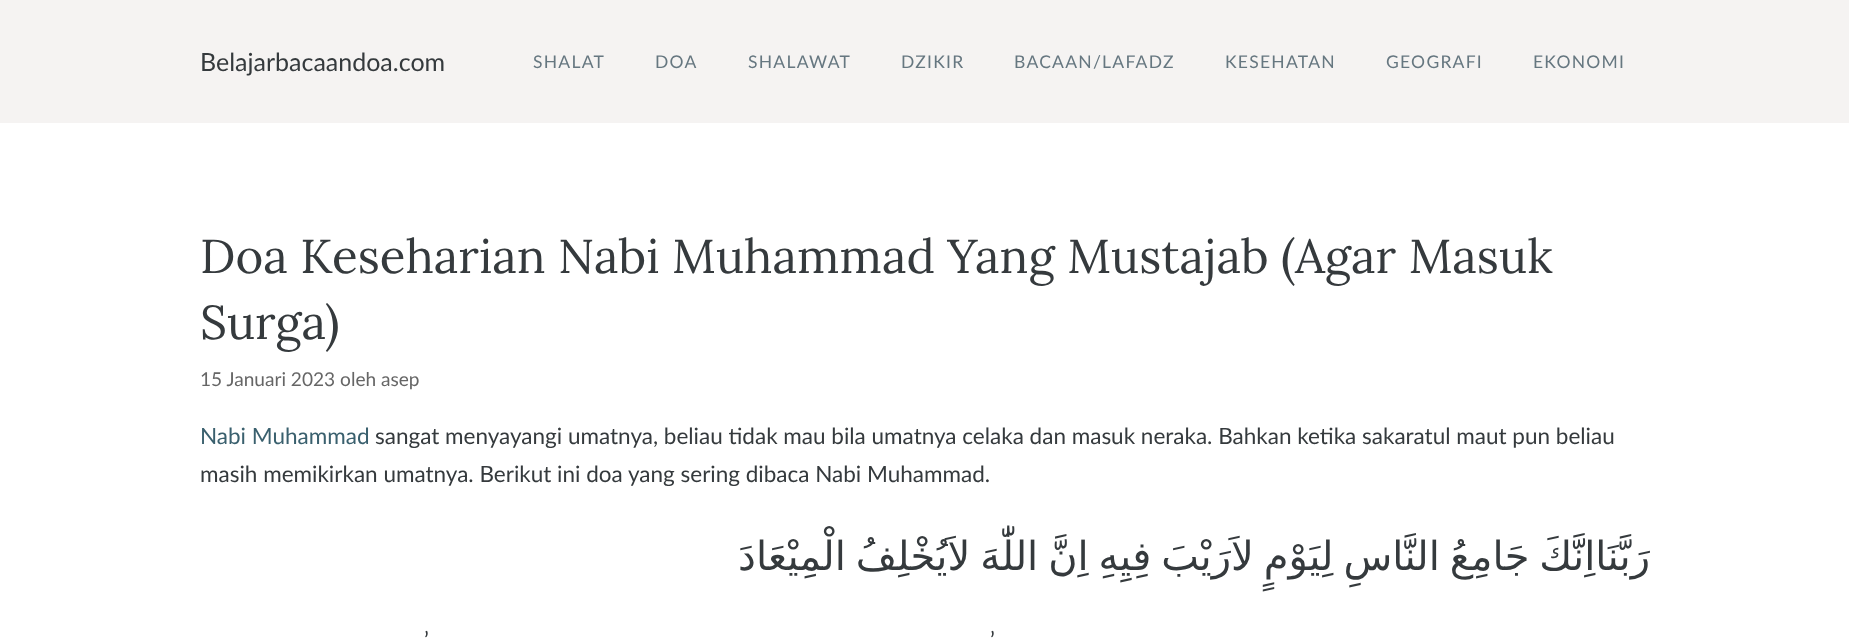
<svg xmlns="http://www.w3.org/2000/svg" width="1849" height="639">
<style>
.a{font:25px Lato;fill:#353a3d}
.b{font:17.5px Lato;letter-spacing:1.25px;fill:#667780}
.c{font:47.5px Lora;fill:#353a3d}
.d{font:19.1px Lato;fill:#666}
.e{font:22.5px Lato;fill:#3a606e}
.f{font:22.5px Lato;fill:#353a3d}
.g{font:40px DejaVu Sans;direction:rtl;fill:#353a3d}
</style>
<rect width="100%" height="100%" fill="#fff"/>
<path fill="#f5f3f2" d="M0 0h1849v123H0z"/>
<text class="a" x="200" y="71">Belajarbacaandoa.com</text>
<text class="b" x="533" y="68">SHALAT</text>
<text class="b" x="655" y="68">DOA</text>
<text class="b" x="748" y="68">SHALAWAT</text>
<text class="b" x="901" y="68">DZIKIR</text>
<text class="b" x="1014" y="68">BACAAN/LAFADZ</text>
<text class="b" x="1225" y="68">KESEHATAN</text>
<text class="b" x="1386" y="68">GEOGRAFI</text>
<text class="b" x="1533" y="68">EKONOMI</text>
<text class="c" x="200" y="273">Doa Keseharian Nabi Muhammad Yang Mustajab (Agar Masuk</text>
<text class="c" x="200" y="339">Surga)</text>
<text class="d" x="200" y="386">15 Januari 2023 oleh asep</text>
<text class="e" x="200" y="444">Nabi Muhammad</text>
<text class="f" x="375" y="444">sangat menyayangi umatnya, beliau tidak mau bila umatnya celaka dan masuk neraka. Bahkan ketika sakaratul maut pun beliau</text>
<text class="f" x="200" y="482">masih memikirkan umatnya. Berikut ini doa yang sering dibaca Nabi Muhammad.</text>
<text class="g" x="1650" y="570" word-spacing="-2.75">رَبَّنَااِنَّكَ جَامِعُ النَّاسِ لِيَوْمٍ لاَرَيْبَ فِيِهِ اِنَّ اللّٰهَ لاَيُخْلِفُ الْمِيْعَادَ</text>
<text class="f" x="424" y="648">’</text>
<text class="f" x="990" y="648">’</text>
</svg>
